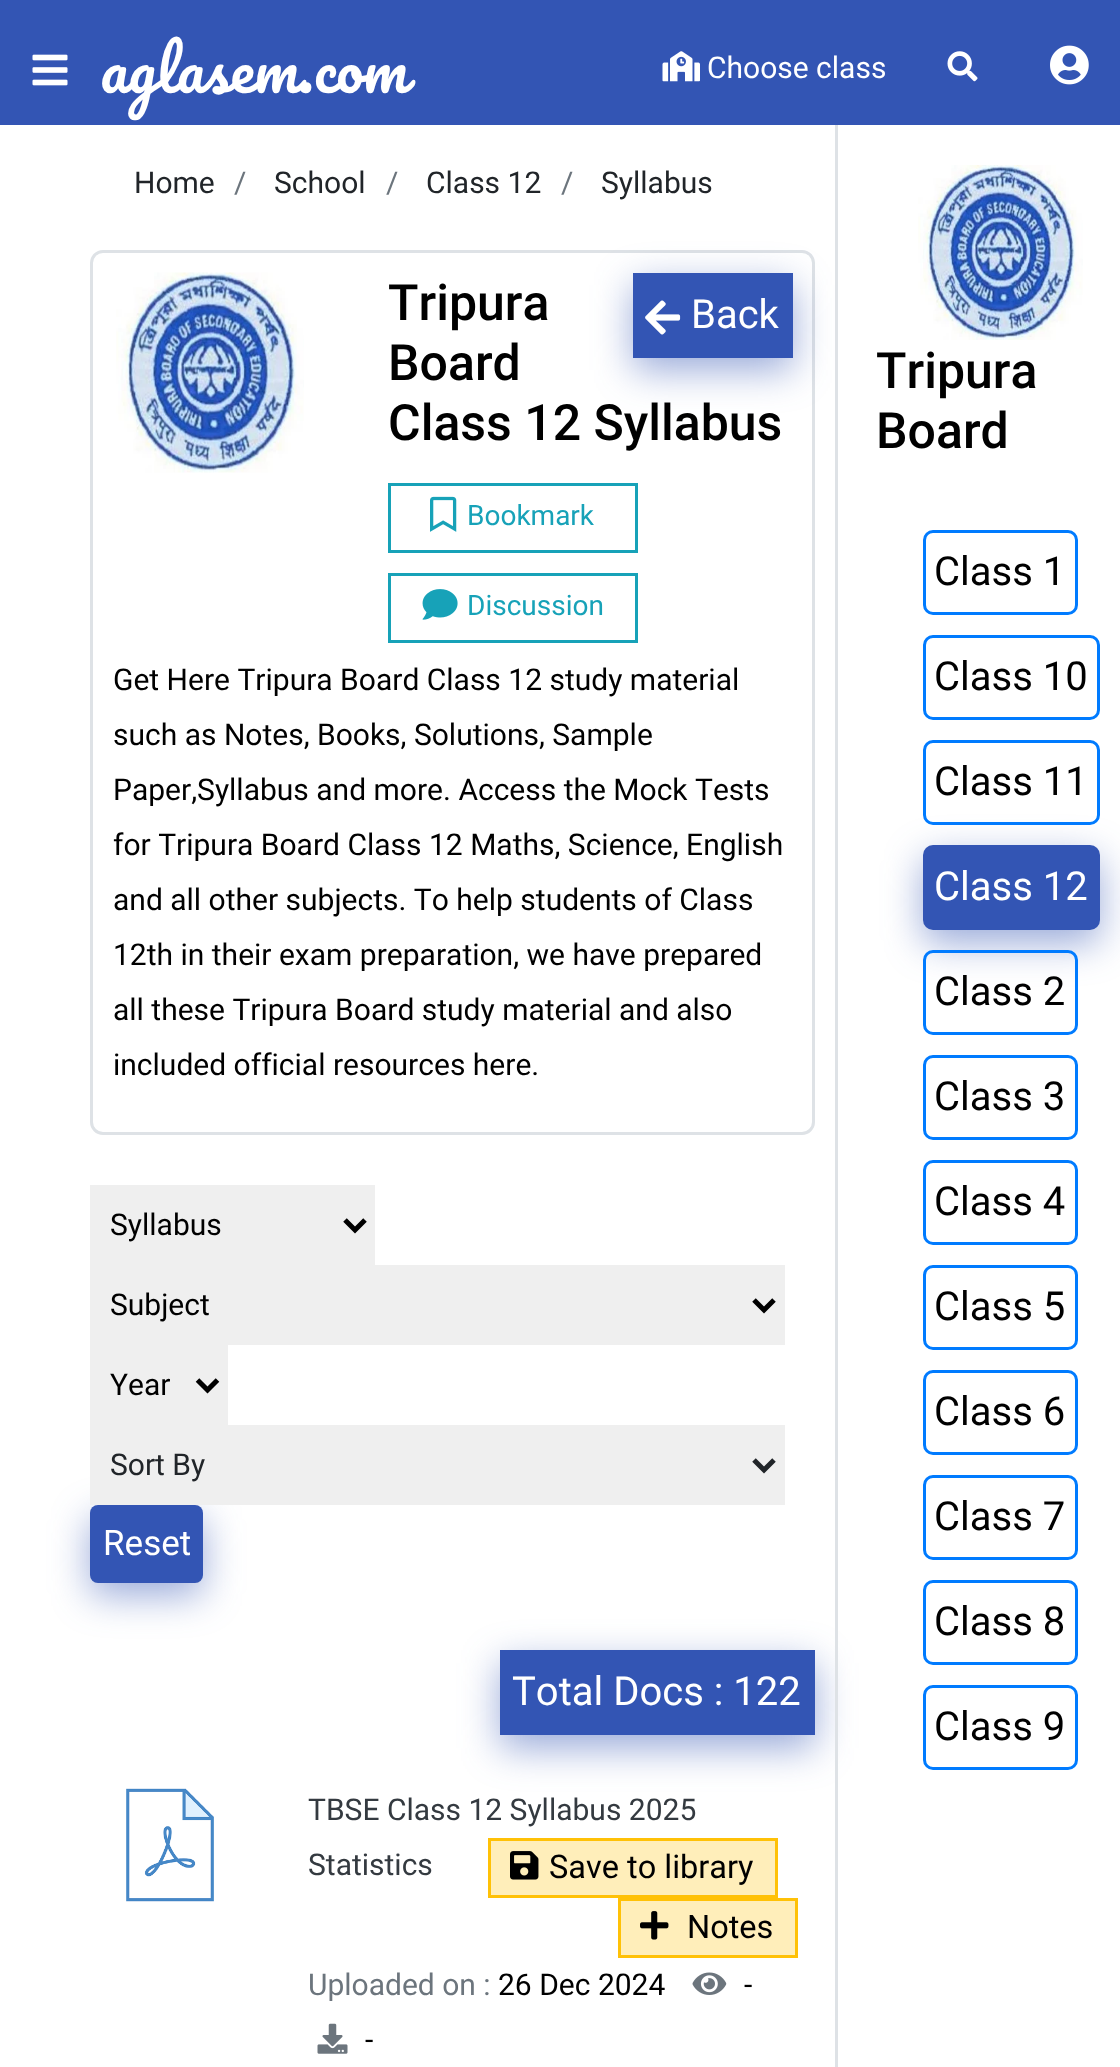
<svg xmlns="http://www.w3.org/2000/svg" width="1120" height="2067">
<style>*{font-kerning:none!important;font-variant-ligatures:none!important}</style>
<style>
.a{font:60px Pacifico;fill:#fff}
.b{font:30px Roboto;fill:#fff}
.c{font:30px Roboto;fill:#212529}
.d{font:30px Roboto;fill:#6c757d}
.e{font:500 50px Roboto;fill:#000}
.f{font:40px Roboto;fill:#fff}
.g{font:28px Roboto;fill:#17a2b8}
.h{font:30px Roboto;fill:#000}
.i{font:35px Roboto;fill:#fff}
.j{font:30px Roboto;fill:#343a40}
.k{font:32.5px Roboto;fill:#000}
.l{font:40px Roboto;fill:#000}
</style>
<rect width="100%" height="100%" fill="#3355b4"/>
<path fill="#fff" d="M0 125h1120v1942H0z"/>
<image href="1.png" x="32" y="54" width="36" height="32"/>
<image href="2.png" x="662" y="51" width="38" height="31"/>
<image href="3.png" x="947" y="51" width="31" height="31"/>
<image href="4.png" x="1050" y="45" width="39" height="40"/>
<rect fill="none" stroke="#dee2e6" stroke-width="3" x="91.5" y="251.5" width="722" height="882" rx="11.5"/>
<image href="5.png" x="116" y="272" width="188" height="201"/>
<path fill="#3355b480" filter="blur(19px)" d="M633 285h160v85H633z"/>
<path fill="#3355b4" d="M633 273h160v85H633z"/>
<image href="6.png" x="645" y="300" width="36" height="35"/>
<path fill="none" stroke="#17a2b8" stroke-width="3" d="M389.5 484.5h247v67H389.5z"/>
<image href="7.png" x="430" y="496" width="27" height="36"/>
<path fill="none" stroke="#17a2b8" stroke-width="3" d="M389.5 574.5h247v67H389.5z"/>
<image href="8.png" x="422" y="589" width="36" height="31"/>
<path fill="#efefef" d="M90 1185h285v80H90z"/>
<path fill="none" stroke="#000" stroke-width="5" d="M345 1220l10 10l10-10"/>
<path fill="#efefef" d="M90 1265h695v80H90z"/>
<path fill="none" stroke="#000" stroke-width="5" d="M754 1300l10 10l10-10"/>
<path fill="#efefef" d="M90 1345h138v80H90z"/>
<path fill="none" stroke="#000" stroke-width="5" d="M197.5 1380l10 10l10-10"/>
<rect fill="#3355b480" filter="blur(19px)" x="90" y="1518" width="113" height="77" rx="8"/>
<path fill="#efefef" d="M90 1425h695v80H90z"/>
<path fill="none" stroke="#212529" stroke-width="5" d="M754 1460l10 10l10-10"/>
<rect fill="#3355b4" x="90" y="1505" width="113" height="78" rx="8"/>
<path fill="#3355b480" filter="blur(19px)" d="M500 1663h315v85H500z"/>
<path fill="#3355b4" d="M500 1650h315v85H500z"/>
<image href="9.png" x="126" y="1788" width="88" height="114"/>
<path fill="#ffeeba" stroke="#ffc107" stroke-width="3" d="M489.5 1839.5h287v57H489.5z"/>
<image href="10.png" x="510" y="1851" width="29" height="29"/>
<path fill="#ffeeba" stroke="#ffc107" stroke-width="3" d="M619.5 1899.5h177v57H619.5z"/>
<image href="11.png" x="640" y="1911" width="29" height="29"/>
<image href="12.png" x="692" y="1972" width="35" height="23"/>
<image href="13.png" x="317" y="2023" width="31" height="31"/>
<path fill="#dee2e6" d="M835 125h3v1942H835z"/>
<image href="14.png" x="918" y="165" width="165" height="175"/>
<rect fill="none" stroke="#007bff" stroke-width="3" x="924.5" y="531.5" width="152" height="82" rx="8.5"/>
<rect fill="none" stroke="#007bff" stroke-width="3" x="924.5" y="636.5" width="174" height="82" rx="8.5"/>
<rect fill="none" stroke="#007bff" stroke-width="3" x="924.5" y="741.5" width="174" height="82" rx="8.5"/>
<rect fill="#3355b480" filter="blur(19px)" x="923" y="858" width="177" height="85" rx="10"/>
<rect fill="#3355b4" x="923" y="845" width="177" height="85" rx="10"/>
<rect fill="none" stroke="#007bff" stroke-width="3" x="924.5" y="951.5" width="152" height="82" rx="8.5"/>
<rect fill="none" stroke="#007bff" stroke-width="3" x="924.5" y="1056.5" width="152" height="82" rx="8.5"/>
<rect fill="none" stroke="#007bff" stroke-width="3" x="924.5" y="1161.5" width="152" height="82" rx="8.5"/>
<rect fill="none" stroke="#007bff" stroke-width="3" x="924.5" y="1266.5" width="152" height="82" rx="8.5"/>
<rect fill="none" stroke="#007bff" stroke-width="3" x="924.5" y="1371.5" width="152" height="82" rx="8.5"/>
<rect fill="none" stroke="#007bff" stroke-width="3" x="924.5" y="1476.5" width="152" height="82" rx="8.5"/>
<rect fill="none" stroke="#007bff" stroke-width="3" x="924.5" y="1581.5" width="152" height="82" rx="8.5"/>
<rect fill="none" stroke="#007bff" stroke-width="3" x="924.5" y="1686.5" width="152" height="82" rx="8.5"/>
<text class="a" x="100" y="93">aglasem.com</text>
<text class="b" x="707" y="78">Choose class</text>
<text class="c" x="134" y="193">Home</text>
<text class="d" x="234" y="193">/</text>
<text class="c" x="274" y="193">School</text>
<text class="d" x="386" y="193">/</text>
<text class="c" x="426" y="193">Class 12</text>
<text class="d" x="561" y="193">/</text>
<text class="c" x="601" y="193">Syllabus</text>
<text class="e" x="388" y="320">Tripura</text>
<text class="e" x="388" y="380">Board</text>
<text class="e" x="388" y="440">Class 12 Syllabus</text>
<text class="f" x="691" y="328">Back</text>
<text class="g" x="467" y="525">Bookmark</text>
<text class="g" x="467" y="615">Discussion</text>
<text class="h" x="113" y="690">Get Here Tripura Board Class 12 study material</text>
<text class="h" x="113" y="745">such as Notes, Books, Solutions, Sample</text>
<text class="h" x="113" y="800">Paper,Syllabus and more. Access the Mock Tests</text>
<text class="h" x="113" y="855">for Tripura Board Class 12 Maths, Science, English</text>
<text class="h" x="113" y="910">and all other subjects. To help students of Class</text>
<text class="h" x="113" y="965">12th in their exam preparation, we have prepared</text>
<text class="h" x="113" y="1020">all these Tripura Board study material and also</text>
<text class="h" x="113" y="1075">included official resources here.</text>
<text class="h" x="110" y="1235">Syllabus</text>
<text class="h" x="110" y="1315">Subject</text>
<text class="h" x="110" y="1395">Year</text>
<text class="c" x="110" y="1475">Sort By</text>
<text class="i" x="103" y="1555">Reset</text>
<text class="f" x="512" y="1705">Total Docs : 122</text>
<text class="j" x="308" y="1820">TBSE Class 12 Syllabus 2025</text>
<text class="j" x="308" y="1875">Statistics</text>
<text class="k" x="549" y="1878">Save to library</text>
<text class="k" x="687" y="1938">Notes</text>
<text class="d" x="308" y="1995">Uploaded on :</text>
<text class="h" x="498" y="1995">26 Dec 2024</text>
<text class="h" x="744" y="1995">-</text>
<text class="h" x="365" y="2050">-</text>
<text class="e" x="876" y="388">Tripura</text>
<text class="e" x="876" y="448">Board</text>
<text class="l" x="934" y="585">Class 1</text>
<text class="l" x="934" y="690">Class 10</text>
<text class="l" x="934" y="795">Class 11</text>
<text class="f" x="934" y="900">Class 12</text>
<text class="l" x="934" y="1005">Class 2</text>
<text class="l" x="934" y="1110">Class 3</text>
<text class="l" x="934" y="1215">Class 4</text>
<text class="l" x="934" y="1320">Class 5</text>
<text class="l" x="934" y="1425">Class 6</text>
<text class="l" x="934" y="1530">Class 7</text>
<text class="l" x="934" y="1635">Class 8</text>
<text class="l" x="934" y="1740">Class 9</text>
</svg>
